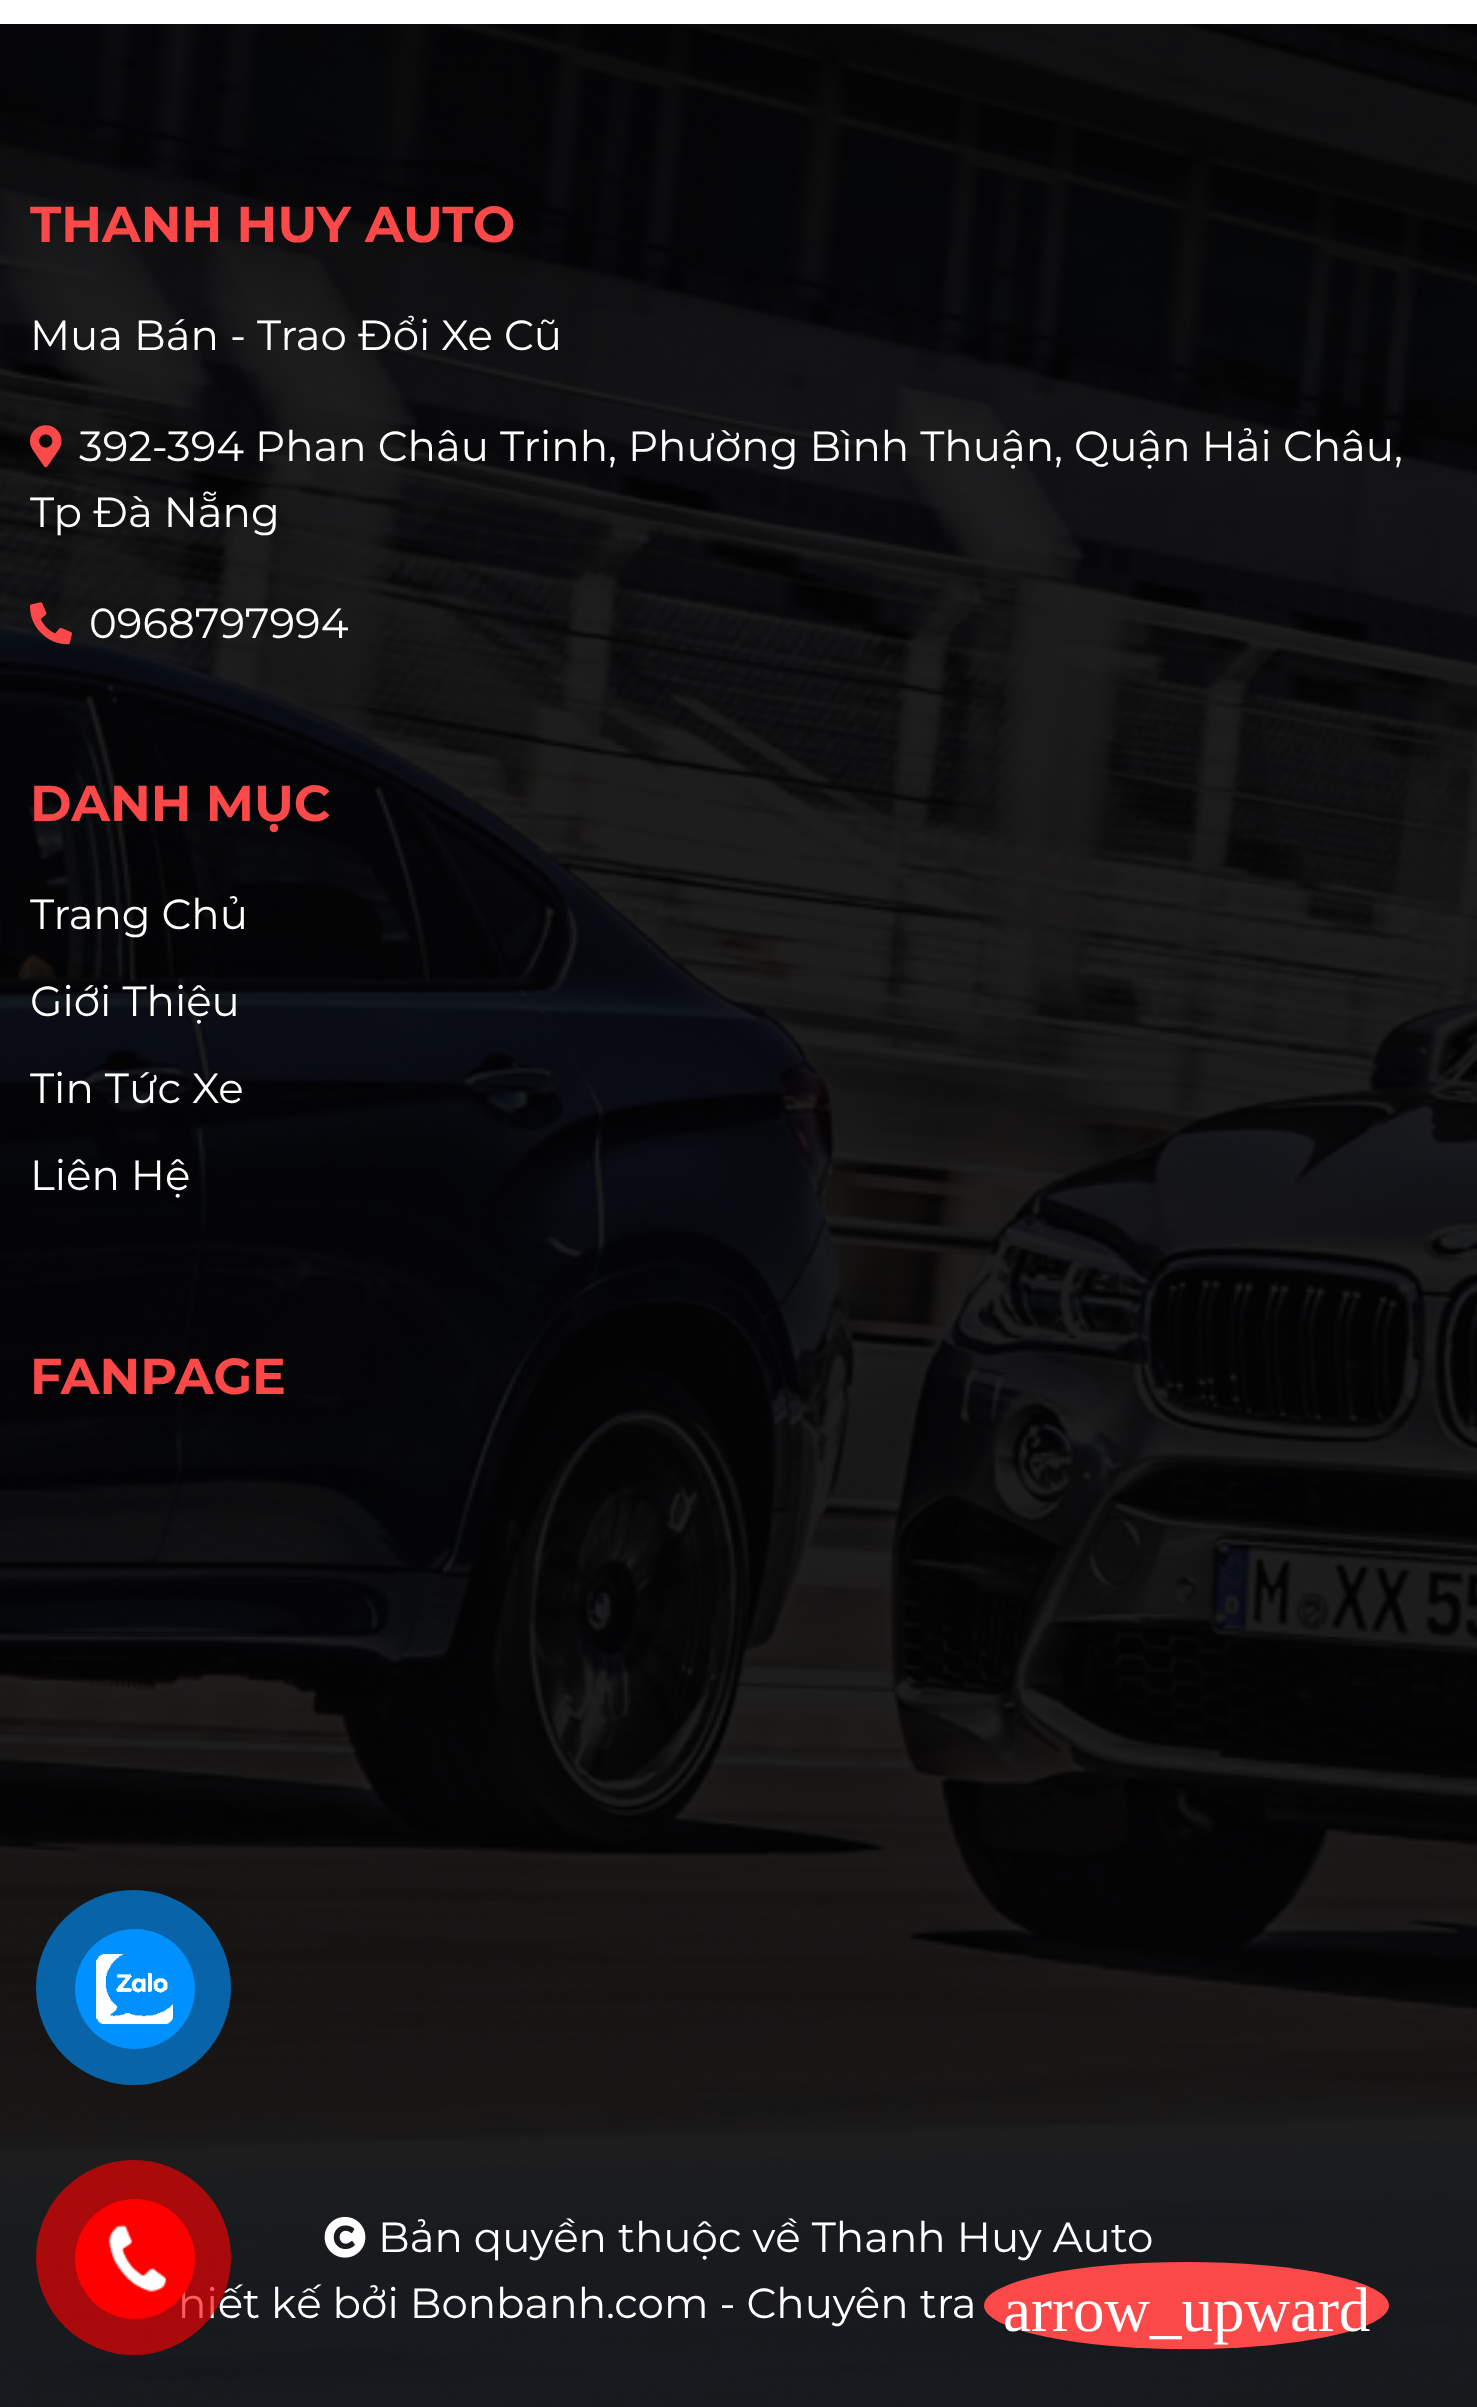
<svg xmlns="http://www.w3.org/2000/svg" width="1477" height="2407">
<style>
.a{font:bold 50.5px Montserrat;fill:#fb4848}
.b{font:42px Montserrat;fill:#fff}
.c{font:63px Liberation Serif;fill:#fff}
</style>
<rect width="100%" height="100%" fill="#fff"/>
<image href="1.png" x="0" y="24" width="1477" height="2383"/>
<image href="2.png" x="30" y="425" width="32" height="43"/>
<image href="3.png" x="30" y="602" width="42" height="43"/>
<image href="4.png" x="324" y="2216" width="42" height="42"/>
<circle fill="#0091ffa1" cx="133.5" cy="1987.5" r="97.5"/>
<circle fill="#0091ff" cx="135" cy="1989" r="60"/>
<image href="5.png" x="96" y="1954" width="77" height="71"/>
<ellipse fill="#fb4848" cx="1186.5" cy="2305.5" rx="202.5" ry="43.5"/>
<text class="a" x="30" y="242">THANH HUY AUTO</text>
<text class="b" x="30" y="350">Mua Bán - Trao Đổi Xe Cũ</text>
<text class="b" x="79" y="461">392-394 Phan Châu Trinh, Phường Bình Thuận, Quận Hải Châu,</text>
<text class="b" x="30" y="527">Tp Đà Nẵng</text>
<text class="b" x="89" y="638">0968797994</text>
<text class="a" x="30" y="821">DANH MỤC</text>
<text class="b" x="30" y="929">Trang Chủ</text>
<text class="b" x="30" y="1016">Giới Thiệu</text>
<text class="b" x="30" y="1103">Tin Tức Xe</text>
<text class="b" x="30" y="1190">Liên Hệ</text>
<text class="a" x="30" y="1394">FANPAGE</text>
<text class="b" x="378" y="2252">Bản quyền thuộc về Thanh Huy Auto</text>
<text class="b" x="178" y="2318">hiết kế bởi Bonbanh.com - Chuyên tra</text>
<circle fill="#ff0000a1" cx="133.5" cy="2257.5" r="97.5"/>
<circle fill="#f00" cx="135" cy="2259" r="60"/>
<image href="6.png" x="108" y="2224" width="59" height="68"/>
<text class="c" x="1003" y="2331">arrow_upward</text>
</svg>
